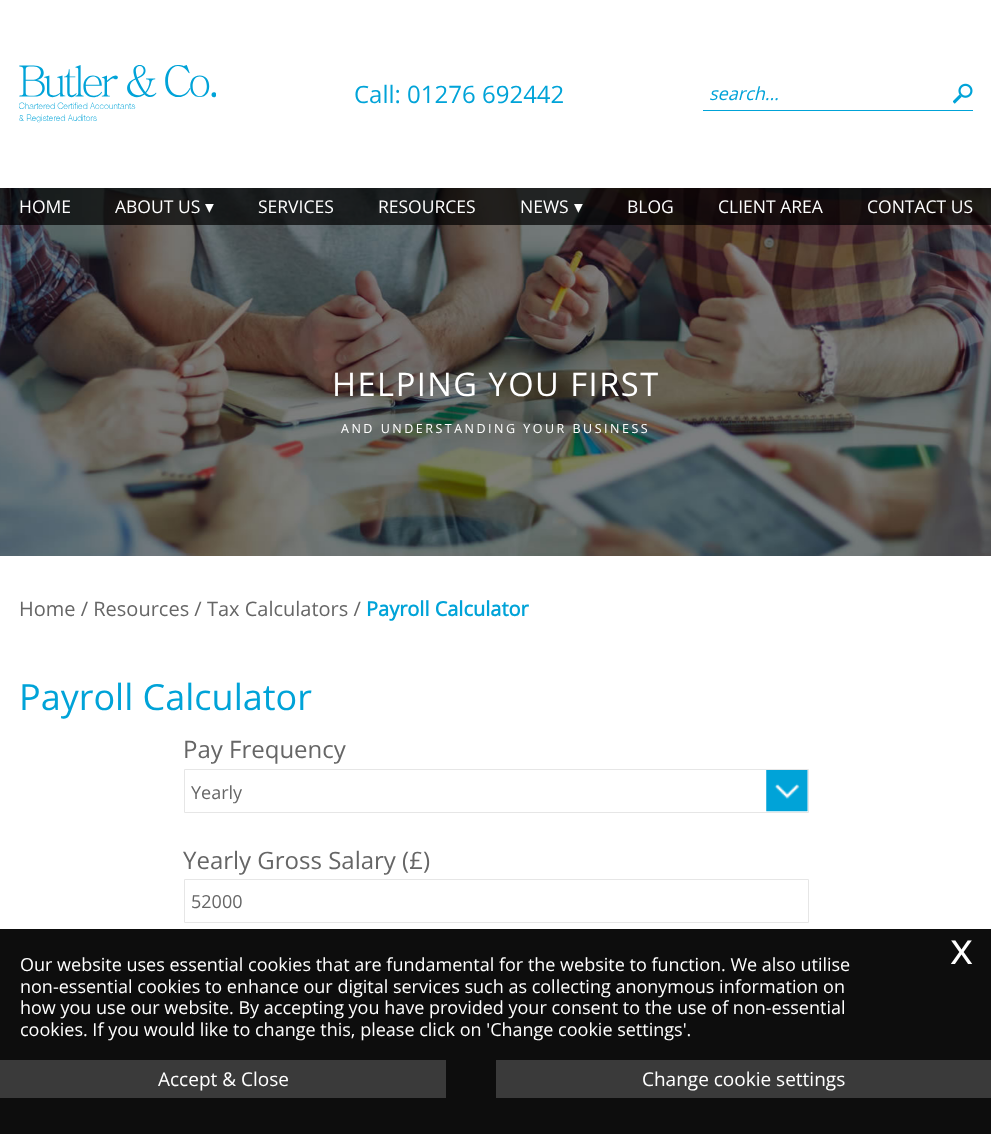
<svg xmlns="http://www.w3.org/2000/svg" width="991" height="1134">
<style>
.a{font:24px Open Sans;fill:#00a3d8}
.b{font:italic 18px Open Sans;fill:#00a3d8}
.c{font:17.5px Open Sans;fill:#fff}
.d{font:17.5px DejaVu Sans;fill:#fff}
.e{font:32.6px Open Sans;letter-spacing:1.5px;fill:#fff}
.f{font:12.5px Open Sans;letter-spacing:2.5px;fill:#fff}
.g{font:20px Open Sans;fill:#666}
.h{font:bold 20px Open Sans;fill:#00a3d8}
.i{font:36px Open Sans;fill:#00a3d8}
.j{font:24px Open Sans;fill:#666}
.k{font:18px Open Sans;fill:#666}
.l{font:44px Open Sans;fill:#fff}
.m{font:18px Open Sans;fill:#fff}
.n{font:19px Open Sans;fill:#fff}
</style>
<rect width="100%" height="100%" fill="#fff"/>
<image href="1.png" x="19" y="65" width="197" height="58"/>
<path fill="#00a3d8" d="M703 110h270v1H703z"/>
<image href="2.png" x="953" y="83" width="20" height="21"/>
<image href="3.png" x="0" y="188" width="991" height="368"/>
<path fill="#000000b3" d="M0 188h991v37H0z"/>
<path fill="#0d0d0d" d="M0 929h991v205H0z"/>
<image href="4.png" x="766" y="770" width="42" height="42"/>
<path fill="none" stroke="#e6e6e6" d="M184.5 769.5h624v43H184.5z"/>
<path fill="none" stroke="#e6e6e6" d="M184.5 879.5h624v43H184.5z"/>
<path fill="#3a3a3a" d="M0 1060h446v38H0z"/>
<path fill="#3a3a3a" d="M496 1060h495v38H496z"/>
<text class="a" x="354" y="103">Call: 01276 692442</text>
<text class="b" x="709" y="100">search…</text>
<text class="c" x="19" y="213">HOME</text>
<text class="c" x="115" y="213">ABOUT US</text>
<text class="d" x="205" y="213">▾</text>
<text class="c" x="258" y="213">SERVICES</text>
<text class="c" x="378" y="213">RESOURCES</text>
<text class="c" x="520" y="213">NEWS</text>
<text class="d" x="574" y="213">▾</text>
<text class="c" x="627" y="213">BLOG</text>
<text class="c" x="718" y="213">CLIENT AREA</text>
<text class="c" x="867" y="213">CONTACT US</text>
<text class="e" x="332" y="396">HELPING YOU FIRST</text>
<text class="f" x="341" y="433">AND UNDERSTANDING YOUR BUSINESS</text>
<text class="g" x="19" y="616">Home / Resources / Tax Calculators /</text>
<text class="h" x="366" y="616">Payroll Calculator</text>
<text class="i" x="19" y="710">Payroll Calculator</text>
<text class="j" x="183" y="758">Pay Frequency</text>
<text class="k" x="191" y="799">Yearly</text>
<text class="j" x="183" y="869">Yearly Gross Salary (£)</text>
<text class="k" x="191" y="908">52000</text>
<text class="l" x="950" y="964">x</text>
<text class="m" x="20" y="971">Our website uses essential cookies that are fundamental for the website to function. We also utilise</text>
<text class="m" x="20" y="993">non-essential cookies to enhance our digital services such as collecting anonymous information on</text>
<text class="m" x="20" y="1014">how you use our website. By accepting you have provided your consent to the use of non-essential</text>
<text class="m" x="20" y="1036">cookies. If you would like to change this, please click on 'Change cookie settings'.</text>
<text class="n" x="158" y="1086">Accept &amp; Close</text>
<text class="n" x="642" y="1086">Change cookie settings</text>
</svg>
